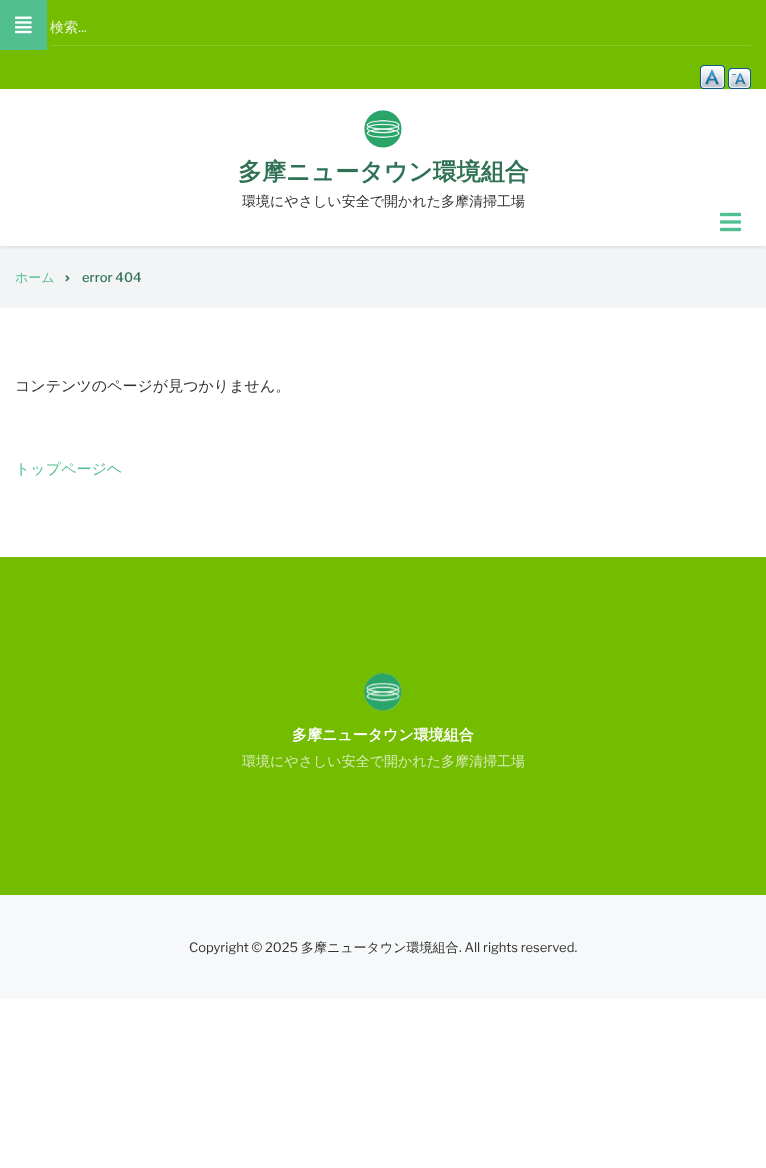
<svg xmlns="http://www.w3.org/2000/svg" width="766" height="1168">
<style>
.a{font:500 14px WenQuanYi Zen Hei;fill:#eaf5d9}
.b{font:14px Libre Franklin;fill:#eaf5d9}
.c{font:bold 24px WenQuanYi Zen Hei;fill:#317256}
.d{font:500 14px WenQuanYi Zen Hei;fill:#333}
.e{font:500 13px WenQuanYi Zen Hei;fill:#52bf90}
.f{font:500 13px Libre Franklin;fill:#317256}
.g{font:500 15px WenQuanYi Zen Hei;fill:#333}
.h{font:500 15px WenQuanYi Zen Hei;fill:#52bf90}
.i{font:bold 15px WenQuanYi Zen Hei;fill:#fff}
.j{font:500 14px WenQuanYi Zen Hei;fill:#d5ebb3}
.k{font:13px Libre Franklin;fill:#333}
.l{font:500 13px WenQuanYi Zen Hei;fill:#333}
</style>
<defs>
<clipPath id="clip1"><path d="M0 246h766v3H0z"/></clipPath>
</defs>
<rect width="100%" height="100%" fill="#fff"/>
<path fill="#f2f4f6" d="M0 246h766v62H0z"/>
<g clip-path="url(#clip1)">
<path fill="#0000001a" filter="blur(2.5px)" d="M0 1h766v246H0z"/>
</g>
<path fill="#74bc00" d="M0 0h766v89H0z"/>
<path fill="#52bf90" d="M0 0h47v50H0z"/>
<image href="1.png" x="15" y="16" width="17" height="18"/>
<path fill="#89c626" d="M50 45h701v1H50z"/>
<image href="2.png" x="700" y="65" width="25" height="24"/>
<image href="3.png" x="728" y="68" width="23" height="21"/>
<image href="4.png" x="364" y="110" width="38" height="38"/>
<image href="5.png" x="720" y="212" width="21" height="20"/>
<image href="6.png" x="65" y="275" width="5" height="7"/>
<path fill="#74bc00" d="M0 557h766v338H0z"/>
<image href="7.png" x="364" y="673" width="39" height="39"/>
<path fill="#f6f8f9" d="M0 895h766v104H0z"/>
<text class="a" x="50" y="32">検索</text>
<text class="b" x="78" y="32">...</text>
<text class="c" x="238" y="180">多摩ニュータウン環境組合</text>
<text class="d" x="242" y="206">環境にやさしい安全で開かれた多摩清掃工場</text>
<text class="e" x="15" y="282">ホーム</text>
<text class="f" x="82" y="282">error 404</text>
<text class="g" x="15" y="391">コンテンツのページが見つかりません。</text>
<text class="h" x="15" y="474">トップページヘ</text>
<text class="i" x="292" y="740">多摩ニュータウン環境組合</text>
<text class="j" x="242" y="766">環境にやさしい安全で開かれた多摩清掃工場</text>
<text class="k" x="189" y="952">Copyright © 2025</text>
<text class="l" x="301" y="952">多摩ニュータウン環境組合</text>
<text class="k" x="459" y="952">. All rights reserved.</text>
</svg>
